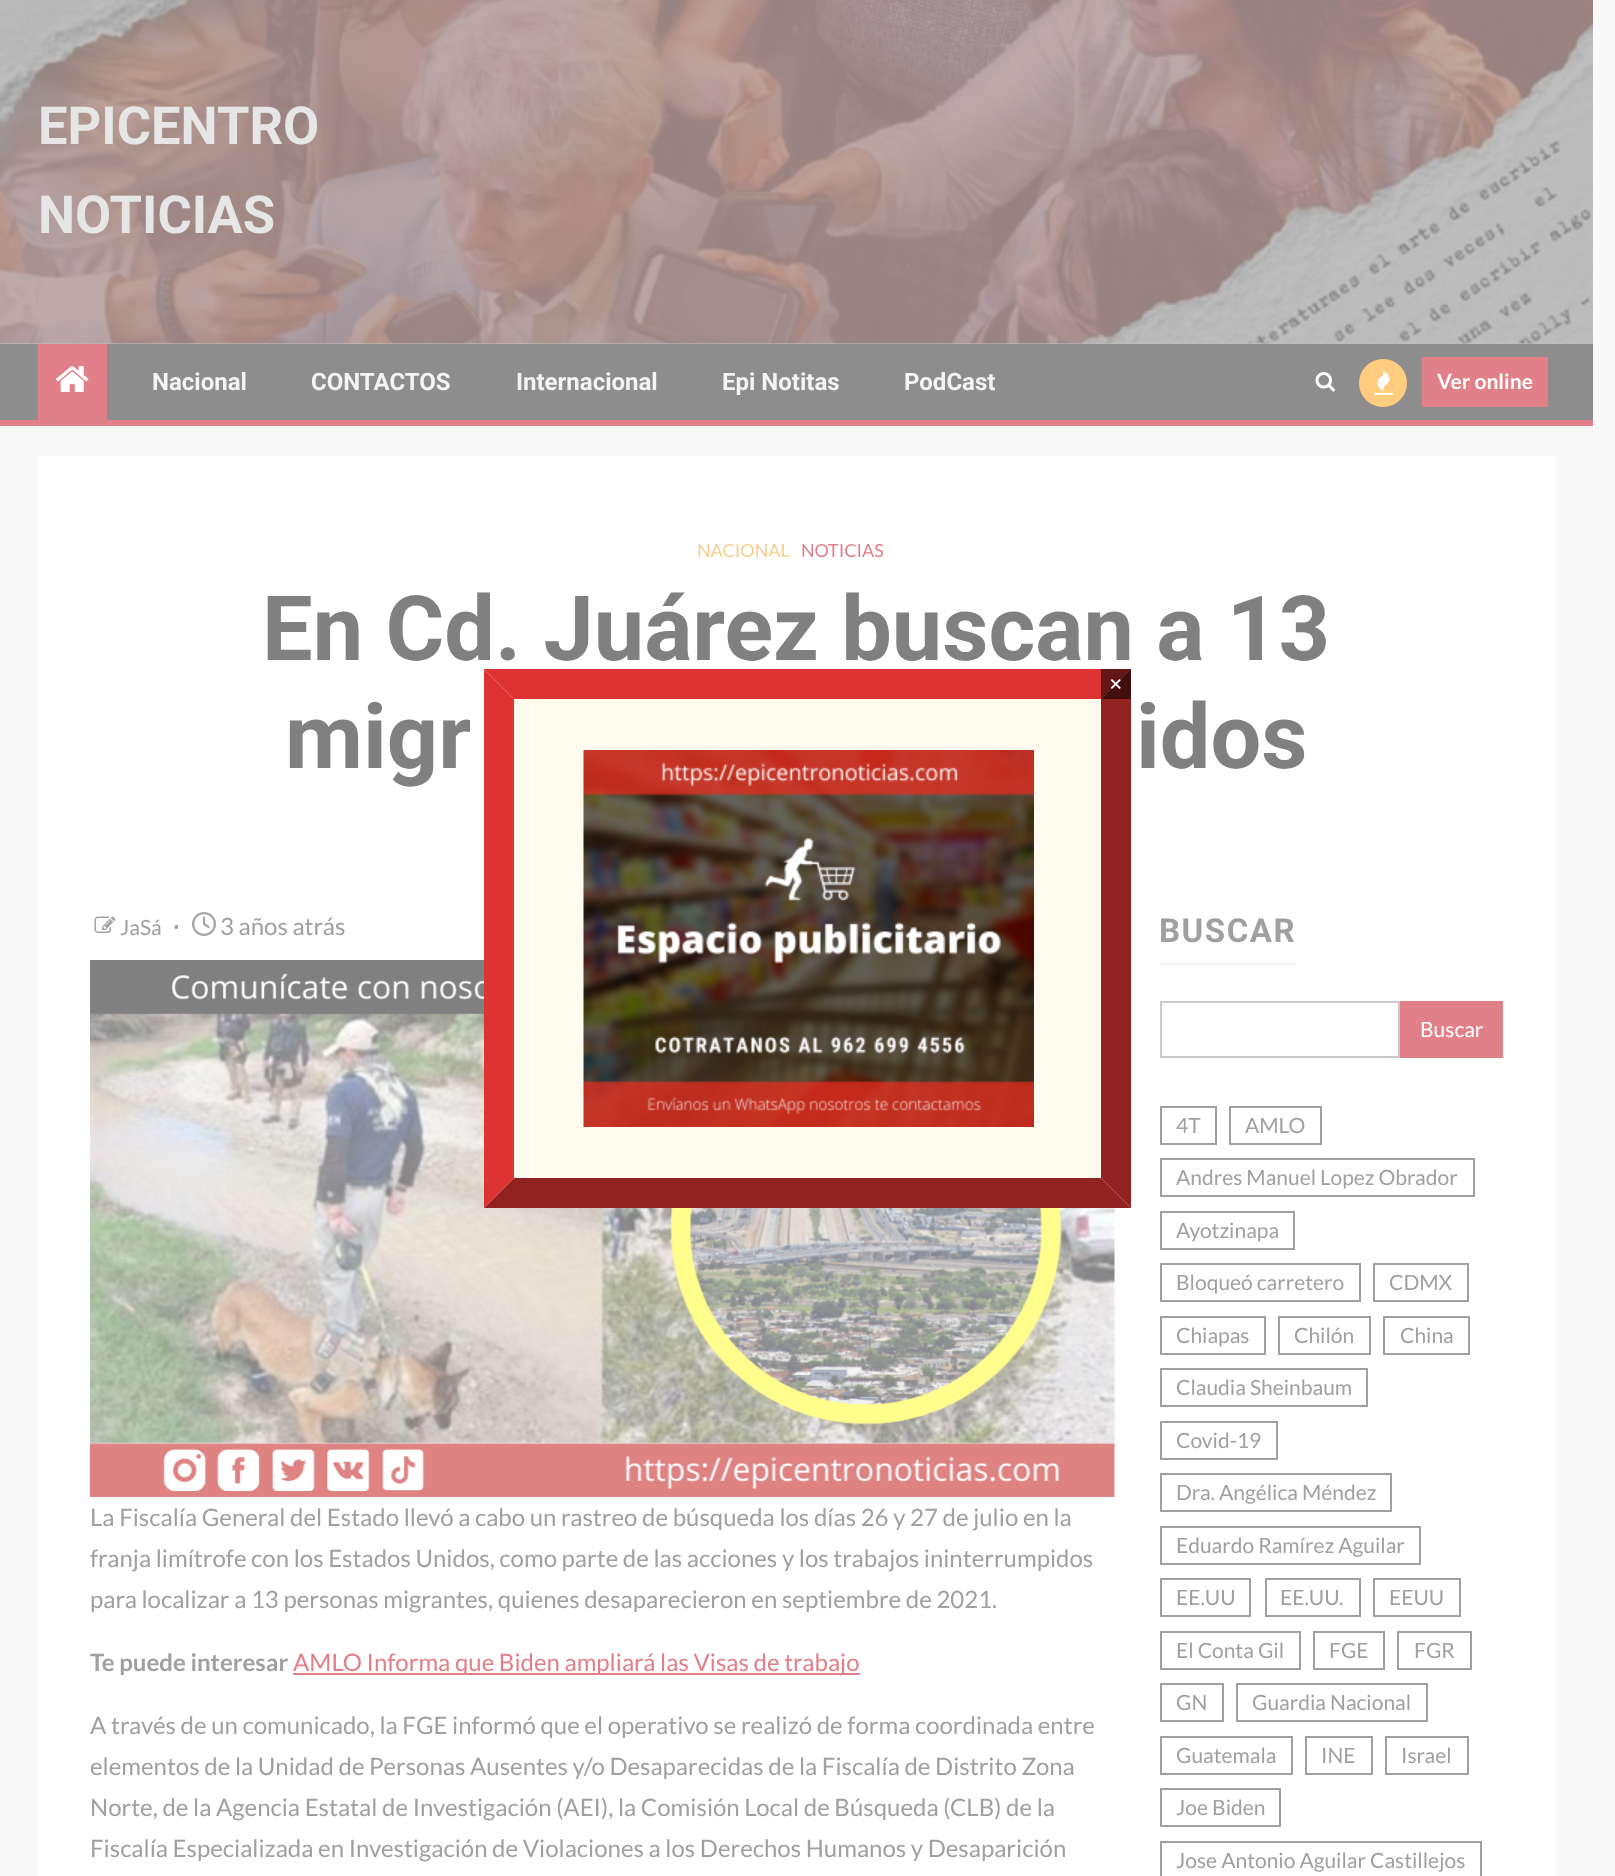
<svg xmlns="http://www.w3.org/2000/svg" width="1615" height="1876">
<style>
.a{font:bold 52.5px Roboto;fill:#e6e6e6}
.b{font:bold 24px Roboto;fill:#f4f4f4}
.c{font:bold 21px Lato;fill:#fff}
.d{font:18px Lato;fill:#f8ce90}
.e{font:18px Lato;fill:#e18088}
.f{font:bold 90px Roboto;fill:#808080}
.g{font:21px Lato;fill:#a0a0a0}
.h{font:bold 24px Liberation Sans;fill:#a0a0a0}
.i{font:24px Lato;fill:#a0a0a0}
.j{font:bold 24px Lato;fill:#a0a0a0}
.k{font:24px Lato;fill:#e18088}
.l{font:bold 33px Roboto;letter-spacing:1.5px;fill:#a0a0a0}
.m{font:21px Lato;fill:#fff}
.n{font:bold 24px Liberation Serif;fill:#fff}
</style>
<rect width="100%" height="100%" fill="#f9f9f9"/>
<path fill="#c0c0c0" d="M0 343h1593v1H0z"/>
<image href="1.png" x="0" y="0" width="1593" height="344"/>
<path fill="#8d8d8d" d="M0 344h1593v76H0z"/>
<path fill="#e18088" d="M0 420h1593v6H0z"/>
<path fill="#e18088" d="M38 344h69v76H38z"/>
<image href="2.png" x="56" y="366" width="33" height="26"/>
<image href="3.png" x="1315" y="372" width="20" height="20"/>
<circle fill="#ffcc80" cx="1383" cy="383" r="24"/>
<image href="4.png" x="1374" y="370" width="19" height="25"/>
<path fill="#e18088" d="M1422 357h126v50H1422z"/>
<path fill="#fff" d="M38 456h1518v1420H38z"/>
<image href="5.png" x="94" y="916" width="22" height="17"/>
<image href="6.png" x="192" y="912" width="24" height="24"/>
<image href="7.png" x="90" y="960" width="1025" height="537"/>
<path fill="#e18088" d="M293 1673h567v2H293z"/>
<path fill="#f3f3f3" d="M1160 963h136v2H1160z"/>
<path fill="none" stroke="#cacaca" stroke-width="2" d="M1161 1002h238v55H1161z"/>
<path fill="#e18088" d="M1400 1001h103v57H1400z"/>
<path fill="none" stroke="#a0a0a0" stroke-width="2" d="M1161 1107h55v37H1161z"/>
<path fill="none" stroke="#a0a0a0" stroke-width="2" d="M1230 1107h91v37H1230z"/>
<path fill="none" stroke="#a0a0a0" stroke-width="2" d="M1161 1159h313v37H1161z"/>
<path fill="none" stroke="#a0a0a0" stroke-width="2" d="M1161 1212h133v37H1161z"/>
<path fill="none" stroke="#a0a0a0" stroke-width="2" d="M1161 1264h199v37H1161z"/>
<path fill="none" stroke="#a0a0a0" stroke-width="2" d="M1374 1264h94v37H1374z"/>
<path fill="none" stroke="#a0a0a0" stroke-width="2" d="M1161 1317h104v37H1161z"/>
<path fill="none" stroke="#a0a0a0" stroke-width="2" d="M1279 1317h91v37H1279z"/>
<path fill="none" stroke="#a0a0a0" stroke-width="2" d="M1384 1317h85v37H1384z"/>
<path fill="none" stroke="#a0a0a0" stroke-width="2" d="M1161 1369h206v37H1161z"/>
<path fill="none" stroke="#a0a0a0" stroke-width="2" d="M1161 1422h116v37H1161z"/>
<path fill="none" stroke="#a0a0a0" stroke-width="2" d="M1161 1474h230v37H1161z"/>
<path fill="none" stroke="#a0a0a0" stroke-width="2" d="M1161 1527h259v37H1161z"/>
<path fill="none" stroke="#a0a0a0" stroke-width="2" d="M1161 1579h89v37H1161z"/>
<path fill="none" stroke="#a0a0a0" stroke-width="2" d="M1266 1579h94v37H1266z"/>
<path fill="none" stroke="#a0a0a0" stroke-width="2" d="M1374 1579h86v37H1374z"/>
<path fill="none" stroke="#a0a0a0" stroke-width="2" d="M1161 1632h139v37H1161z"/>
<path fill="none" stroke="#a0a0a0" stroke-width="2" d="M1314 1632h70v37H1314z"/>
<path fill="none" stroke="#a0a0a0" stroke-width="2" d="M1398 1632h73v37H1398z"/>
<path fill="none" stroke="#a0a0a0" stroke-width="2" d="M1161 1684h62v37H1161z"/>
<path fill="none" stroke="#a0a0a0" stroke-width="2" d="M1237 1684h190v37H1237z"/>
<path fill="none" stroke="#a0a0a0" stroke-width="2" d="M1161 1737h131v37H1161z"/>
<path fill="none" stroke="#a0a0a0" stroke-width="2" d="M1306 1737h66v37H1306z"/>
<path fill="none" stroke="#a0a0a0" stroke-width="2" d="M1386 1737h82v37H1386z"/>
<path fill="none" stroke="#a0a0a0" stroke-width="2" d="M1161 1789h119v37H1161z"/>
<path fill="none" stroke="#a0a0a0" stroke-width="2" d="M1161 1842h320v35H1161z"/>
<path fill="#fffbef" d="M485 669h646v539H485z"/>
<path fill="#d33" d="M484 669h647l-30 30h-587z"/>
<path fill="#932222" d="M1131 669v539l-30-30v-479z"/>
<path fill="#932222" d="M1131 1208h-647l30-30h587z"/>
<path fill="#d33" d="M484 1208v-539l30 30v479z"/>
<path fill="#0000008c" d="M1101 669h30v30H1101z"/>
<image href="8.png" x="583" y="750" width="451" height="377"/>
<text class="a" x="38" y="144">EPICENTRO</text>
<text class="a" x="38" y="233">NOTICIAS</text>
<text class="b" x="152" y="390">Nacional</text>
<text class="b" x="311" y="390">CONTACTOS</text>
<text class="b" x="516" y="390">Internacional</text>
<text class="b" x="722" y="390">Epi Notitas</text>
<text class="b" x="904" y="390">PodCast</text>
<text class="c" x="1437" y="389">Ver online</text>
<text class="d" x="697" y="557">NACIONAL</text>
<text class="e" x="801" y="557">NOTICIAS</text>
<text class="f" x="262" y="660">En Cd. Juárez buscan a 13</text>
<text class="f" x="285" y="768">migr</text>
<text class="f" x="1136" y="768">idos</text>
<text class="g" x="120" y="935">JaSá</text>
<text class="h" x="173" y="935">∙</text>
<text class="i" x="220" y="935">3 años atrás</text>
<text class="i" x="90" y="1526">La Fiscalía General del Estado llevó a cabo un rastreo de búsqueda los días 26 y 27 de julio en la</text>
<text class="i" x="90" y="1567">franja limítrofe con los Estados Unidos, como parte de las acciones y los trabajos ininterrumpidos</text>
<text class="i" x="90" y="1608">para localizar a 13 personas migrantes, quienes desaparecieron en septiembre de 2021.</text>
<text class="j" x="90" y="1671">Te puede interesar</text>
<text class="k" x="293" y="1671">AMLO Informa que Biden ampliará las Visas de trabajo</text>
<text class="i" x="90" y="1734">A través de un comunicado, la FGE informó que el operativo se realizó de forma coordinada entre</text>
<text class="i" x="90" y="1775">elementos de la Unidad de Personas Ausentes y/o Desaparecidas de la Fiscalía de Distrito Zona</text>
<text class="i" x="90" y="1816">Norte, de la Agencia Estatal de Investigación (AEI), la Comisión Local de Búsqueda (CLB) de la</text>
<text class="i" x="90" y="1857">Fiscalía Especializada en Investigación de Violaciones a los Derechos Humanos y Desaparición</text>
<text class="l" x="1159" y="942">BUSCAR</text>
<text class="m" x="1420" y="1037">Buscar</text>
<text class="g" x="1176" y="1133">4T</text>
<text class="g" x="1245" y="1133">AMLO</text>
<text class="g" x="1176" y="1185">Andres Manuel Lopez Obrador</text>
<text class="g" x="1176" y="1238">Ayotzinapa</text>
<text class="g" x="1176" y="1290">Bloqueó carretero</text>
<text class="g" x="1389" y="1290">CDMX</text>
<text class="g" x="1176" y="1343">Chiapas</text>
<text class="g" x="1294" y="1343">Chilón</text>
<text class="g" x="1400" y="1343">China</text>
<text class="g" x="1176" y="1395">Claudia Sheinbaum</text>
<text class="g" x="1176" y="1448">Covid-19</text>
<text class="g" x="1176" y="1500">Dra. Angélica Méndez</text>
<text class="g" x="1176" y="1553">Eduardo Ramírez Aguilar</text>
<text class="g" x="1176" y="1605">EE.UU</text>
<text class="g" x="1280" y="1605">EE.UU.</text>
<text class="g" x="1389" y="1605">EEUU</text>
<text class="g" x="1176" y="1658">El Conta Gil</text>
<text class="g" x="1329" y="1658">FGE</text>
<text class="g" x="1414" y="1658">FGR</text>
<text class="g" x="1176" y="1710">GN</text>
<text class="g" x="1252" y="1710">Guardia Nacional</text>
<text class="g" x="1176" y="1763">Guatemala</text>
<text class="g" x="1321" y="1763">INE</text>
<text class="g" x="1401" y="1763">Israel</text>
<text class="g" x="1176" y="1815">Joe Biden</text>
<text class="g" x="1176" y="1868">Jose Antonio Aguilar Castillejos</text>
<text class="n" x="1109" y="692">×</text>
</svg>
